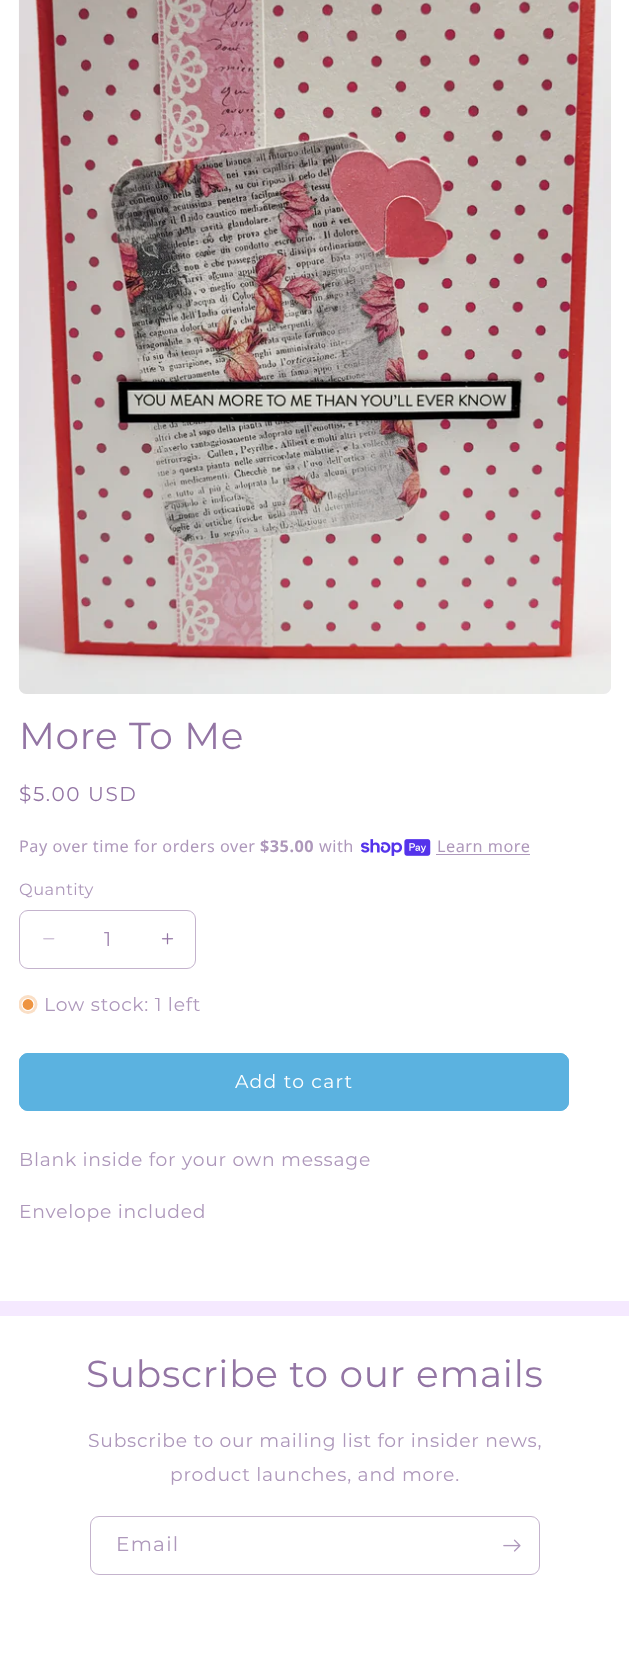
<svg xmlns="http://www.w3.org/2000/svg" width="629" height="1662">
<style>
.a{font:37.5px Montserrat;letter-spacing:0.75px;fill:#9375a4}
.b{font:20px Montserrat;letter-spacing:1.6px;fill:#9375a4}
.c{font:16.25px Noto Sans;letter-spacing:0.5px;fill:#ae98bb}
.d{font:bold 16.25px Noto Sans;letter-spacing:0.5px;fill:#ae98bb}
.e{font:16.25px Montserrat;letter-spacing:0.5px;fill:#ae98bb}
.f{font:20px Montserrat;fill:#a38ab2}
.g{font:18.75px Montserrat;letter-spacing:0.75px;fill:#ae98bb}
.h{font:18.75px Montserrat;letter-spacing:1.25px;fill:#fff}
.i{font:20px Montserrat;letter-spacing:1.25px;fill:#ae98bb}
</style>
<defs>
<clipPath id="clip1"><path d="M19 995h19v19H19z"/></clipPath>
</defs>
<rect width="100%" height="100%" fill="#fff"/>
<image href="1.png" x="18" y="0" width="593" height="694"/>
<image href="2.png" x="361" y="839" width="70" height="17"/>
<path fill="#ae98bb" d="M436 854h94v1H436z"/>
<image href="3.png" x="43" y="938" width="12" height="2"/>
<image href="4.png" x="161" y="933" width="13" height="12"/>
<rect fill="none" stroke="#c4b3cd" x="19.5" y="910.5" width="176" height="58" rx="8.5"/>
<g clip-path="url(#clip1)">
<circle fill="#fadfc6" cx="28" cy="1004.5" r="9.5"/>
</g>
<circle fill="#ee9441" stroke="#fff" stroke-width="1.2" cx="28" cy="1004.5" r="6"/>
<rect fill="#5bb2e0" x="19" y="1053" width="550" height="58" rx="9"/>
<rect fill="none" stroke="#5bb2e0" x="19.5" y="1053.5" width="549" height="57" rx="8.5"/>
<path fill="#f5e9ff" d="M0 1301h629v15H0z"/>
<rect fill="none" stroke="#c4b3cd" x="90.5" y="1516.5" width="449" height="58" rx="8.5"/>
<image href="5.png" x="503" y="1539" width="18" height="13"/>
<text class="a" x="19" y="749">More To Me</text>
<text class="b" x="19" y="801">$5.00 USD</text>
<text class="c" x="19" y="852">Pay over time for orders over</text>
<text class="d" x="260" y="852">$35.00</text>
<text class="c" x="319" y="852">with</text>
<text class="c" x="437" y="852">Learn more</text>
<text class="e" x="19" y="895">Quantity</text>
<text class="f" x="104" y="946">1</text>
<text class="g" x="44" y="1011">Low stock: 1 left</text>
<text class="h" x="235" y="1088">Add to cart</text>
<text class="g" x="19" y="1166">Blank inside for your own message</text>
<text class="g" x="19" y="1218">Envelope included</text>
<text class="a" x="86" y="1387">Subscribe to our emails</text>
<text class="g" x="88" y="1447">Subscribe to our mailing list for insider news,</text>
<text class="g" x="170" y="1481">product launches, and more.</text>
<text class="i" x="116" y="1551">Email</text>
</svg>
